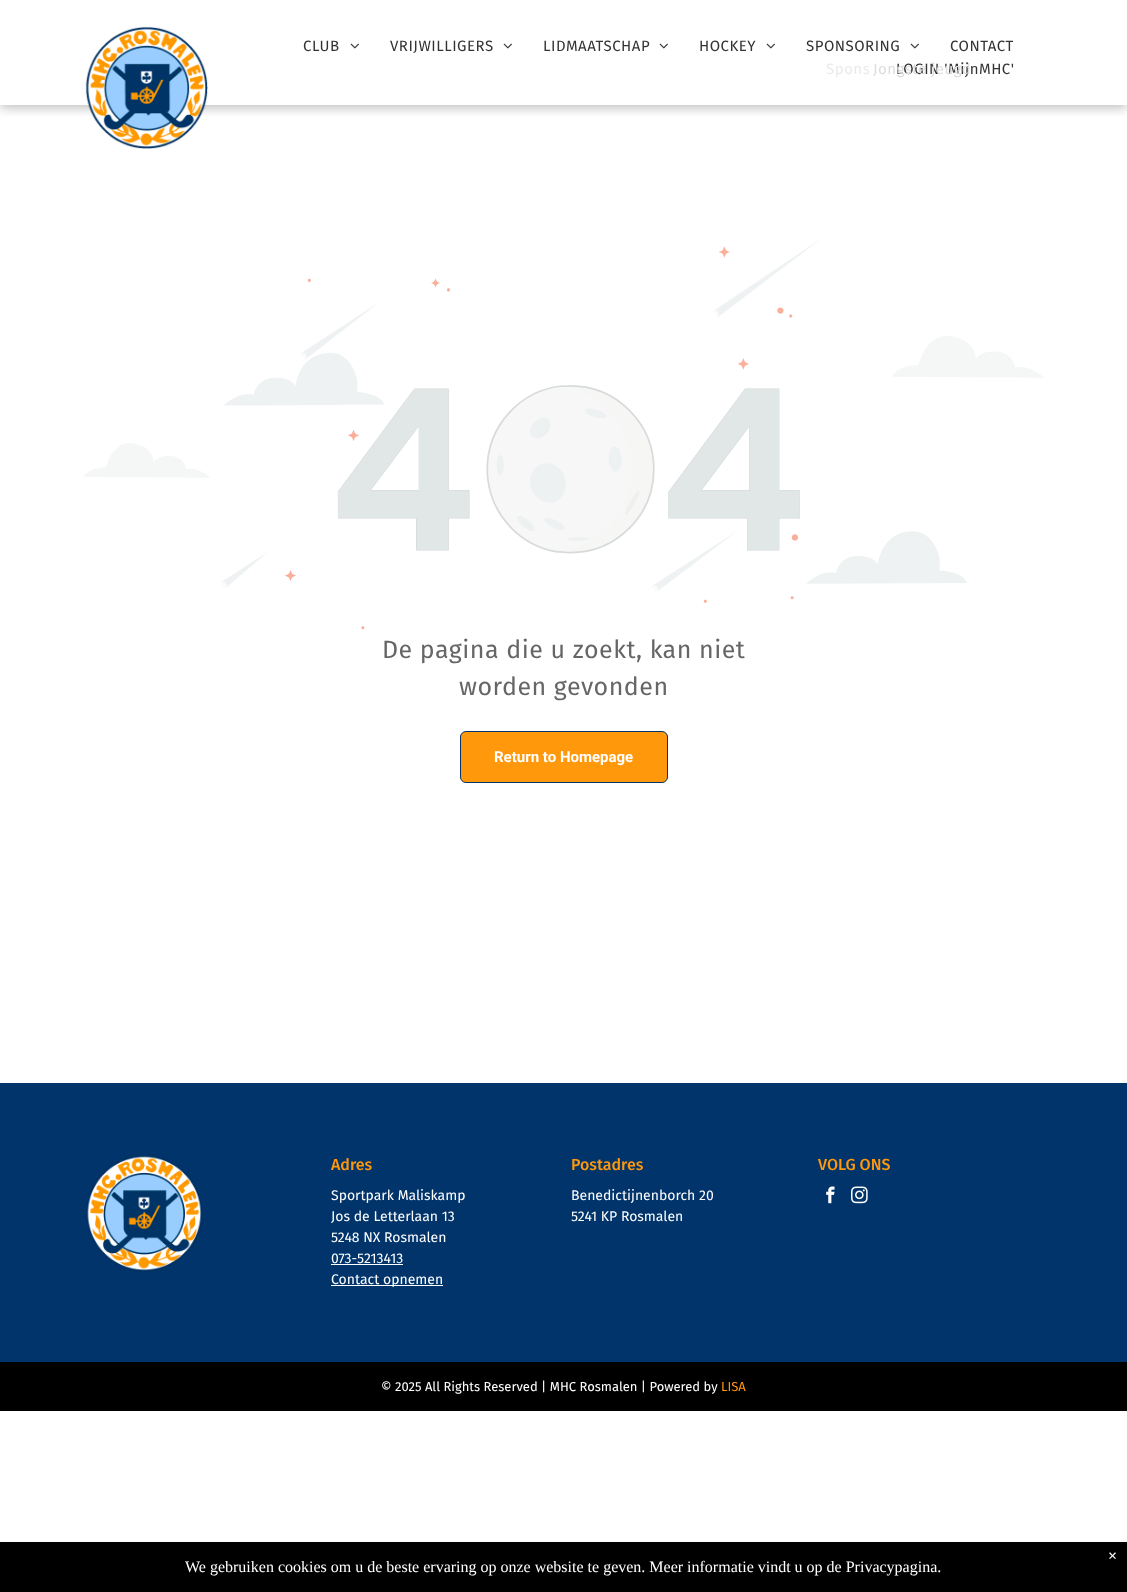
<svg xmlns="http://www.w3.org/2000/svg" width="1127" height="1592">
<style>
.a{font:15px Fira Sans;letter-spacing:0.5px;fill:#333}
.b{font:15px Fira Sans;letter-spacing:0.5px;fill:#eaeaea}
.c{font:15px Fira Sans;letter-spacing:0.5px;fill:#ddd}
.d{font:25px Fira Sans;letter-spacing:0.5px;fill:#666}
.e{font:bold 15px Roboto;fill:#fff}
.f{font:500 16px Fira Sans;fill:#ff980b}
.g{font:14px Fira Sans;fill:#fff}
.h{font:13px Fira Sans;fill:#fff}
.i{font:13px Fira Sans;fill:#ff980b}
.j{font:bold 16px Liberation Serif;fill:#fff}
.k{font:16px Liberation Serif;fill:#fff}
</style>
<defs>
<clipPath id="clip1"><path d="M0 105h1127v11H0z"/></clipPath>
</defs>
<rect width="100%" height="100%" fill="#fff"/>
<g clip-path="url(#clip1)">
<path fill="#00000040" filter="blur(5.5px)" d="M0 3h1127v105H0z"/>
</g>
<image href="1.png" x="85" y="26" width="123" height="123"/>
<image href="2.png" x="350" y="43" width="9" height="6"/>
<image href="2.png" x="503" y="43" width="9" height="6"/>
<image href="2.png" x="659" y="43" width="9" height="6"/>
<image href="2.png" x="766" y="43" width="9" height="6"/>
<image href="2.png" x="910" y="43" width="9" height="6"/>
<image href="3.png" x="84" y="238" width="960" height="392"/>
<rect fill="#ff980b" stroke="#00346a" x="460.5" y="731.5" width="207" height="51" rx="5.5"/>
<path fill="#00346a" d="M0 1083h1127v279H0z"/>
<image href="4.png" x="86" y="1155" width="117" height="117"/>
<path fill="#fff" d="M331 1264h72v1H331z"/>
<path fill="#fff" d="M331 1285h112v1H331z"/>
<image href="5.png" x="826" y="1186" width="9" height="18"/>
<image href="6.png" x="851" y="1186" width="17" height="18"/>
<path fill="#000" d="M0 1362h1127v49H0z"/>
<path fill="#000" d="M0 1542h1127v50H0z"/>
<text class="a" x="303" y="51">CLUB</text>
<text class="a" x="390" y="51">VRIJWILLIGERS</text>
<text class="a" x="543" y="51">LIDMAATSCHAP</text>
<text class="a" x="699" y="51">HOCKEY</text>
<text class="a" x="806" y="51">SPONSORING</text>
<text class="b" x="826" y="74">Spons</text>
<text class="a" x="950" y="51">CONTACT</text>
<text class="a" x="896" y="74">LOGIN 'MijnMHC'</text>
<text class="c" x="873" y="74">Jongste jeugd</text>
<text class="d" x="382" y="658">De pagina die u zoekt, kan niet</text>
<text class="d" x="459" y="695">worden gevonden</text>
<text class="e" x="494" y="762">Return to Homepage</text>
<text class="f" x="331" y="1170">Adres</text>
<text class="g" x="331" y="1200">Sportpark Maliskamp</text>
<text class="g" x="331" y="1221">Jos de Letterlaan 13</text>
<text class="g" x="331" y="1242">5248 NX Rosmalen</text>
<text class="g" x="331" y="1263">073-5213413</text>
<text class="g" x="331" y="1284">Contact opnemen</text>
<text class="f" x="571" y="1170">Postadres</text>
<text class="g" x="571" y="1200">Benedictijnenborch 20</text>
<text class="g" x="571" y="1221">5241 KP Rosmalen</text>
<text class="f" x="818" y="1170">VOLG ONS</text>
<text class="h" x="381" y="1391">© 2025 All Rights Reserved | MHC Rosmalen | Powered by</text>
<text class="i" x="721" y="1391">LISA</text>
<text class="j" x="1108" y="1561">×</text>
<text class="k" x="185" y="1572">We gebruiken cookies om u de beste ervaring op onze website te geven. Meer informatie vindt u op de Privacypagina.</text>
</svg>
